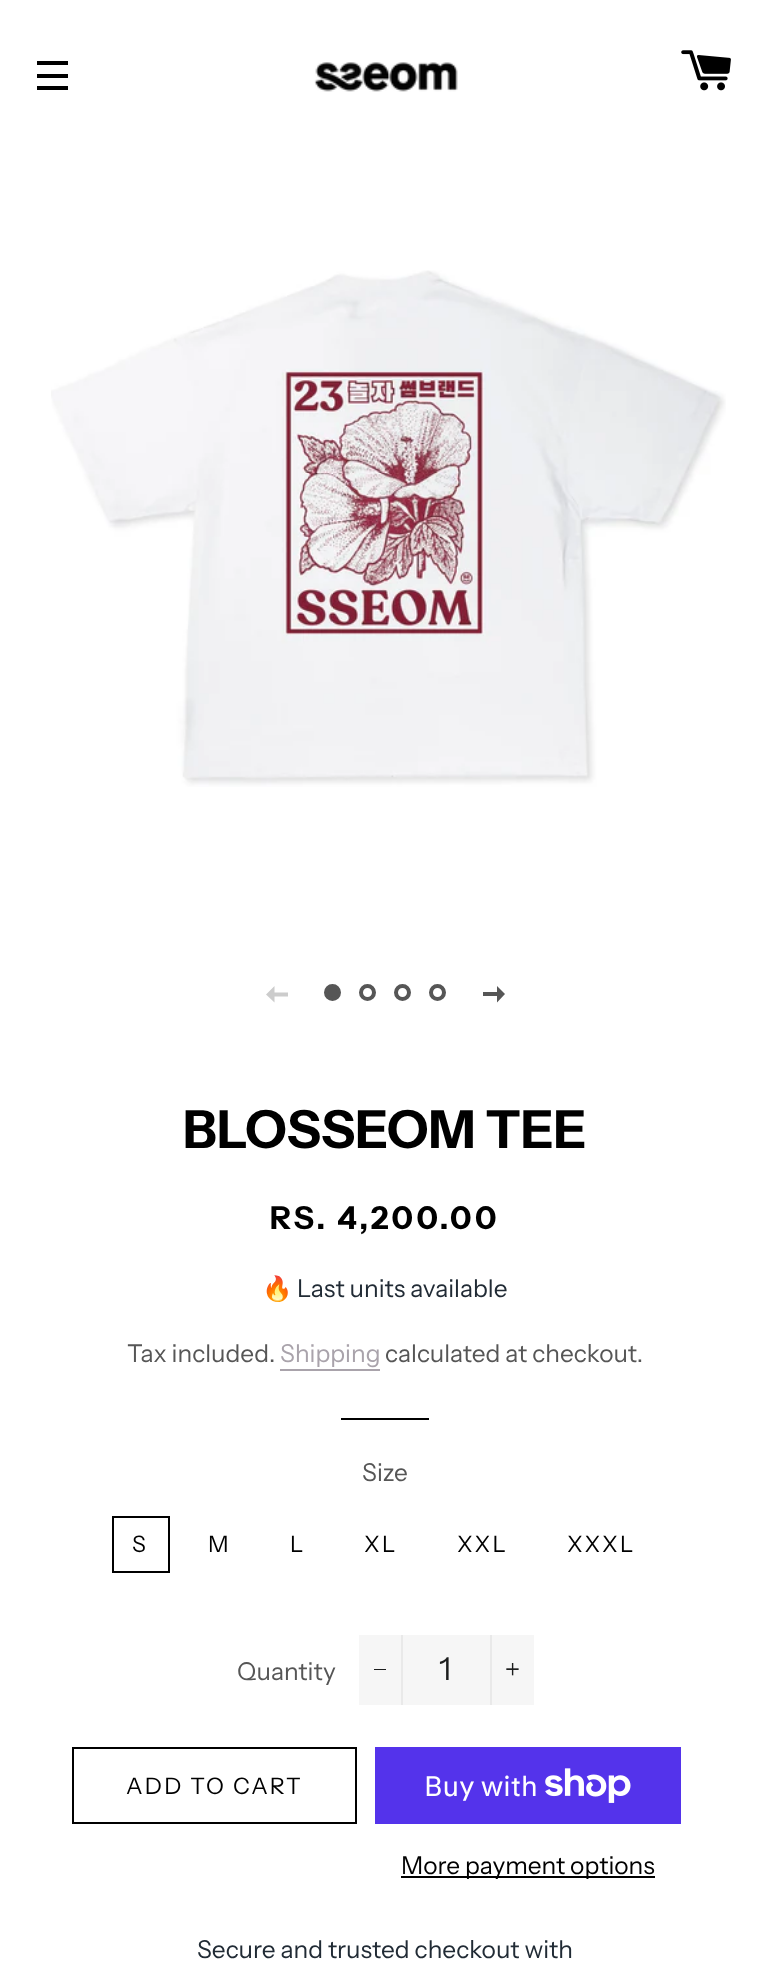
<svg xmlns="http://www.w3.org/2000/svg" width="770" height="1965">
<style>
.a{font:bold 52.5px Instrument Sans;fill:#000}
.b{font:bold 31.5px Instrument Sans;letter-spacing:3.1px;fill:#000}
.c{font:24.5px Noto Color Emoji;fill:#212b35}
.d{font:24.5px Instrument Sans;fill:#212b35}
.e{font:24.5px Instrument Sans;fill:#565656}
.f{font:24.5px Instrument Sans;fill:#a9a3ab}
.g{font:22.75px Instrument Sans;letter-spacing:2.25px;fill:#000}
.h{font:31.5px Instrument Sans;fill:#1c1d1d}
.i{font:28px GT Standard;fill:#fff}
.j{font:24.5px Instrument Sans;fill:#000}
</style>
<rect width="100%" height="100%" fill="#fff"/>
<path fill="#000" d="M37 61h31v4H37z"/>
<path fill="#000" d="M37 74h31v4H37z"/>
<path fill="#000" d="M37 86h31v4H37z"/>
<image href="1.png" x="314" y="62" width="144" height="30"/>
<image href="2.png" x="681" y="50" width="50" height="41"/>
<image href="3.png" x="51" y="270" width="675" height="517"/>
<path fill="#ccc" d="M266 994.5l8.5 8v-6h13.5v-4h-13.5v-6.5z"/>
<circle fill="#565656" stroke="#565656" stroke-width="4" cx="332.5" cy="992.5" r="6.5"/>
<circle fill="none" stroke="#565656" stroke-width="4" cx="367.5" cy="992.5" r="6.5"/>
<circle fill="none" stroke="#565656" stroke-width="4" cx="402.5" cy="992.5" r="6.5"/>
<circle fill="none" stroke="#565656" stroke-width="4" cx="437.5" cy="992.5" r="6.5"/>
<path fill="#565656" d="M505 994l-8-8v6h-14v4h14v6.5z"/>
<path fill="#a9a3ab" d="M280 1369h100v2H280z"/>
<path fill="#000" d="M341 1418h88v2H341z"/>
<path fill="none" stroke="#000" stroke-width="2" d="M113 1517h56v55H113z"/>
<path fill="#f6f6f6" d="M359 1635h175v70H359z"/>
<path fill="#e9e9e9" d="M401 1635h2v70H401z"/>
<path fill="#1c1d1d" d="M374 1669h12v1H374z"/>
<path fill="#e9e9e9" d="M490 1635h2v70H490z"/>
<image href="4.png" x="506" y="1663" width="13" height="13"/>
<path fill="none" stroke="#000" stroke-width="2" d="M73 1748h283v75H73z"/>
<path fill="#5433eb" d="M375 1747h306v77H375z"/>
<image href="5.png" x="545" y="1768" width="86" height="35"/>
<path fill="#000" d="M401 1876h254v2H401z"/>
<text class="a" x="183" y="1148">BLOSSEOM TEE</text>
<text class="b" x="270" y="1229">RS. 4,200.00</text>
<text class="c" x="262" y="1297">🔥</text>
<text class="d" x="297" y="1297">Last units available</text>
<text class="e" x="127" y="1362">Tax included.</text>
<text class="f" x="280" y="1362">Shipping</text>
<text class="e" x="385" y="1362">calculated at checkout.</text>
<text class="e" x="362" y="1481">Size</text>
<text class="g" x="132" y="1552">S</text>
<text class="g" x="208" y="1552">M</text>
<text class="g" x="290" y="1552">L</text>
<text class="g" x="364" y="1552">XL</text>
<text class="g" x="457" y="1552">XXL</text>
<text class="g" x="567" y="1552">XXXL</text>
<text class="e" x="237" y="1680">Quantity</text>
<text class="h" x="439" y="1680">1</text>
<text class="g" x="126" y="1794">ADD TO CART</text>
<text class="i" x="424" y="1796">Buy with</text>
<text class="j" x="401" y="1874">More payment options</text>
<text class="d" x="197" y="1958">Secure and trusted checkout with</text>
</svg>
